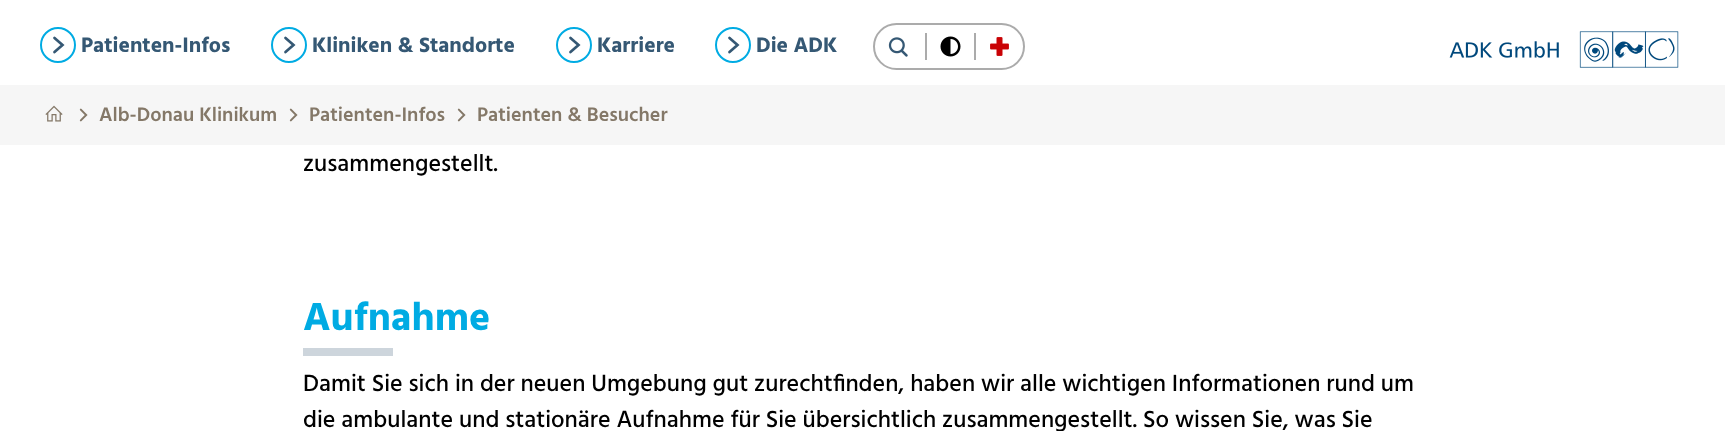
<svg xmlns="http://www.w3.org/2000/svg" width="1725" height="431">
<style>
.a{font:bold 21.5px Hind;fill:#355874}
.b{font:600 20px Hind;fill:#847868}
.c{font:500 24px Hind;fill:#000}
.d{font:bold 40px Hind;fill:#00abe3}
</style>
<rect width="100%" height="100%" fill="#fff"/>
<circle fill="none" stroke="#00abe3" stroke-width="2" cx="58" cy="45" r="17"/>
<path fill="none" stroke="#355874" stroke-width="2.7" stroke-linecap="round" d="M54.5 38l8 7l-8 7"/>
<circle fill="none" stroke="#00abe3" stroke-width="2" cx="289" cy="45" r="17"/>
<path fill="none" stroke="#355874" stroke-width="2.7" stroke-linecap="round" d="M285.5 38l8 7l-8 7"/>
<circle fill="none" stroke="#00abe3" stroke-width="2" cx="574" cy="45" r="17"/>
<path fill="none" stroke="#355874" stroke-width="2.7" stroke-linecap="round" d="M570.5 38l8 7l-8 7"/>
<circle fill="none" stroke="#00abe3" stroke-width="2" cx="733" cy="45" r="17"/>
<path fill="none" stroke="#355874" stroke-width="2.7" stroke-linecap="round" d="M729.5 38l8 7l-8 7"/>
<rect fill="none" stroke="#ababab" stroke-width="2" x="874" y="24" width="150" height="45" rx="22.5"/>
<path fill="#ababab" d="M925 33h2v27H925z"/>
<image href="1.png" x="888" y="37" width="20" height="20"/>
<path fill="#ababab" d="M974 33h2v27H974z"/>
<image href="2.png" x="940" y="36" width="21" height="21"/>
<image href="3.png" x="990" y="37" width="19" height="19"/>
<image href="4.png" x="1449" y="31" width="230" height="37"/>
<path fill="#f6f6f6" d="M0 85h1725v60H0z"/>
<image href="5.png" x="45" y="105" width="18" height="17"/>
<image href="6.png" x="79" y="108" width="9" height="14"/>
<image href="6.png" x="289" y="108" width="9" height="14"/>
<image href="6.png" x="457" y="108" width="9" height="14"/>
<path fill="#cdd5dc" d="M303 348h90v8H303z"/>
<text class="a" x="81" y="52">Patienten-Infos</text>
<text class="a" x="312" y="52">Kliniken &amp; Standorte</text>
<text class="a" x="597" y="52">Karriere</text>
<text class="a" x="756" y="52">Die ADK</text>
<text class="b" x="99" y="121">Alb-Donau Klinikum</text>
<text class="b" x="309" y="121">Patienten-Infos</text>
<text class="b" x="477" y="121">Patienten &amp; Besucher</text>
<text class="c" x="303" y="171">zusammengestellt.</text>
<text class="d" x="303" y="330">Aufnahme</text>
<text class="c" x="303" y="391">Damit Sie sich in der neuen Umgebung gut zurechtfinden, haben wir alle wichtigen Informationen rund um</text>
<text class="c" x="303" y="427">die ambulante und stationäre Aufnahme für Sie übersichtlich zusammengestellt. So wissen Sie, was Sie</text>
</svg>
